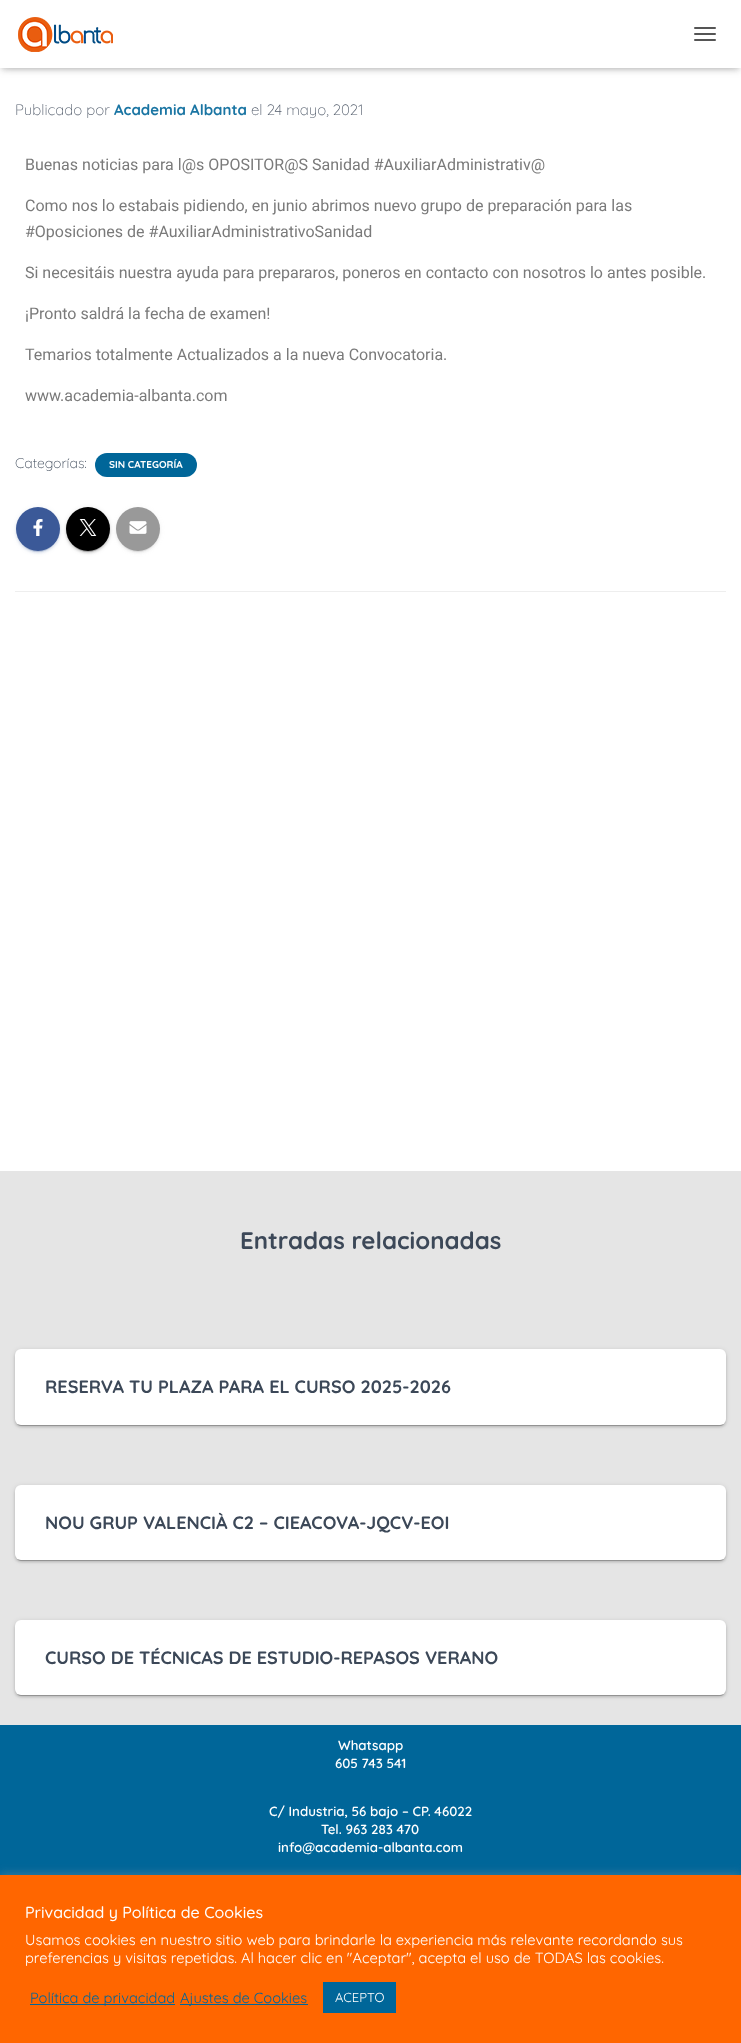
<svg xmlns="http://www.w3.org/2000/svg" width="741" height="2043">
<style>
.a{font:300 15px Quicksand;fill:#505a69}
.b{font:bold 15px Quicksand;fill:#1a75a3}
.c{font:16px Roboto;fill:#7a7a7a}
.d{font:300 14px Quicksand;fill:#3c4858}
.e{font:bold 10px Quicksand;fill:#fff}
.f{font:bold 24px Quicksand;fill:#3c4858}
.g{font:bold 18px Quicksand;fill:#3c4858}
.h{font:600 13.3px Quicksand;fill:#fff}
.i{font:500 16px Quicksand;fill:#fff}
.j{font:14.65px Quicksand;fill:#fff}
.k{font:14.65px Quicksand;fill:#069}
.l{font:13px Quicksand;fill:#fff}
</style>
<rect width="100%" height="100%" fill="#e5e5e5"/>
<path fill="#fff" d="M0 68h741v1103H0z"/>
<path fill="#0000001a" filter="blur(2.5px)" d="M2 6h737v64H2z"/>
<path fill="#0000001f" filter="blur(5px)" d="M0 1h741v68H0z"/>
<path fill="#0000006b" filter="blur(5px)" d="M6 7h729v56H6z"/>
<path fill="#fff" d="M0 0h741v68H0z"/>
<image href="1.png" x="18" y="17" width="95" height="35"/>
<rect fill="#555" x="694" y="27" width="22" height="2" rx="1"/>
<rect fill="#555" x="694" y="33" width="22" height="2" rx="1"/>
<rect fill="#555" x="694" y="39" width="22" height="2" rx="1"/>
<rect fill="#069" x="95" y="453" width="102" height="24" rx="12"/>
<rect fill="#3b59981f" filter="blur(2.5px)" x="16" y="508" width="44" height="44" rx="22"/>
<rect fill="#3b599833" filter="blur(0.5px)" x="18" y="512" width="40" height="40" rx="20"/>
<rect fill="#3b599824" filter="blur(1px)" x="16" y="509" width="44" height="44" rx="22"/>
<circle fill="#3b5998" cx="38" cy="529" r="22"/>
<image href="2.png" x="33" y="519" width="10" height="17"/>
<rect fill="#0000001f" filter="blur(2.5px)" x="66" y="508" width="44" height="44" rx="22"/>
<rect fill="#00000033" filter="blur(0.5px)" x="68" y="512" width="40" height="40" rx="20"/>
<rect fill="#00000024" filter="blur(1px)" x="66" y="509" width="44" height="44" rx="22"/>
<circle fill="#000" cx="88" cy="529" r="22"/>
<image href="3.png" x="79" y="519" width="18" height="17"/>
<rect fill="#9999991f" filter="blur(2.5px)" x="116" y="508" width="44" height="44" rx="22"/>
<rect fill="#99999933" filter="blur(0.5px)" x="118" y="512" width="40" height="40" rx="20"/>
<rect fill="#99999924" filter="blur(1px)" x="116" y="509" width="44" height="44" rx="22"/>
<circle fill="#999" cx="138" cy="529" r="22"/>
<image href="4.png" x="129" y="521" width="18" height="13"/>
<path fill="#eee" d="M15 591h711v1H15z"/>
<rect fill="#0000001f" filter="blur(2.5px)" x="15" y="1350" width="711" height="76" rx="6"/>
<rect fill="#00000033" filter="blur(0.5px)" x="17" y="1354" width="707" height="72" rx="4"/>
<rect fill="#00000024" filter="blur(1px)" x="15" y="1351" width="711" height="76" rx="6"/>
<rect fill="#fff" x="15" y="1349" width="711" height="76" rx="6"/>
<rect fill="#0000001f" filter="blur(2.5px)" x="15" y="1486" width="711" height="75" rx="6"/>
<rect fill="#00000033" filter="blur(0.5px)" x="17" y="1490" width="707" height="71" rx="4"/>
<rect fill="#00000024" filter="blur(1px)" x="15" y="1487" width="711" height="75" rx="6"/>
<rect fill="#fff" x="15" y="1485" width="711" height="75" rx="6"/>
<rect fill="#0000001f" filter="blur(2.5px)" x="15" y="1621" width="711" height="75" rx="6"/>
<rect fill="#00000033" filter="blur(0.5px)" x="17" y="1625" width="707" height="71" rx="4"/>
<rect fill="#00000024" filter="blur(1px)" x="15" y="1622" width="711" height="75" rx="6"/>
<rect fill="#fff" x="15" y="1620" width="711" height="75" rx="6"/>
<path fill="#069" d="M0 1725h741v150H0z"/>
<path fill="#acabab4d" filter="blur(5px)" d="M0 1874h741v168H0z"/>
<path fill="#f60" d="M0 1875h741v168H0z"/>
<path fill="#069" d="M30 2004h145v1H30z"/>
<path fill="#069" d="M180 2004h128v1H180z"/>
<path fill="#069" d="M323 1982h73v31H323z"/>
<text class="a" x="15" y="115">Publicado por</text>
<text class="b" x="114" y="115">Academia Albanta</text>
<text class="a" x="251" y="115">el 24 mayo, 2021</text>
<text class="c" x="25" y="170">Buenas noticias para l@s OPOSITOR@S Sanidad #AuxiliarAdministrativ@</text>
<text class="c" x="25" y="211">Como nos lo estabais pidiendo, en junio abrimos nuevo grupo de preparación para las</text>
<text class="c" x="25" y="237">#Oposiciones de #AuxiliarAdministrativoSanidad</text>
<text class="c" x="25" y="278">Si necesitáis nuestra ayuda para prepararos, poneros en contacto con nosotros lo antes posible.</text>
<text class="c" x="25" y="319">¡Pronto saldrá la fecha de examen!</text>
<text class="c" x="25" y="360">Temarios totalmente Actualizados a la nueva Convocatoria.</text>
<text class="c" x="25" y="401">www.academia-albanta.com</text>
<text class="d" x="15" y="468">Categorías:</text>
<text class="e" x="109" y="468">SIN CATEGORÍA</text>
<text class="f" x="240" y="1249">Entradas relacionadas</text>
<text class="g" x="45" y="1393">RESERVA TU PLAZA PARA EL CURSO 2025-2026</text>
<text class="g" x="45" y="1529">NOU GRUP VALENCIÀ C2 – CIEACOVA-JQCV-EOI</text>
<text class="g" x="45" y="1664">CURSO DE TÉCNICAS DE ESTUDIO-REPASOS VERANO</text>
<text class="h" x="338" y="1750">Whatsapp</text>
<text class="h" x="335" y="1768">605 743 541</text>
<text class="h" x="269" y="1816">C/ Industria, 56 bajo – CP. 46022</text>
<text class="h" x="321" y="1834">Tel. 963 283 470</text>
<text class="h" x="278" y="1852">info@academia-albanta.com</text>
<text class="i" x="25" y="1918">Privacidad y Política de Cookies</text>
<text class="j" x="25" y="1945">Usamos cookies en nuestro sitio web para brindarle la experiencia más relevante recordando sus</text>
<text class="j" x="25" y="1963">preferencias y visitas repetidas. Al hacer clic en "Aceptar", acepta el uso de TODAS las cookies.</text>
<text class="k" x="30" y="2003">Política de privacidad</text>
<text class="k" x="180" y="2003">Ajustes de Cookies</text>
<text class="l" x="335" y="2002">ACEPTO</text>
</svg>
